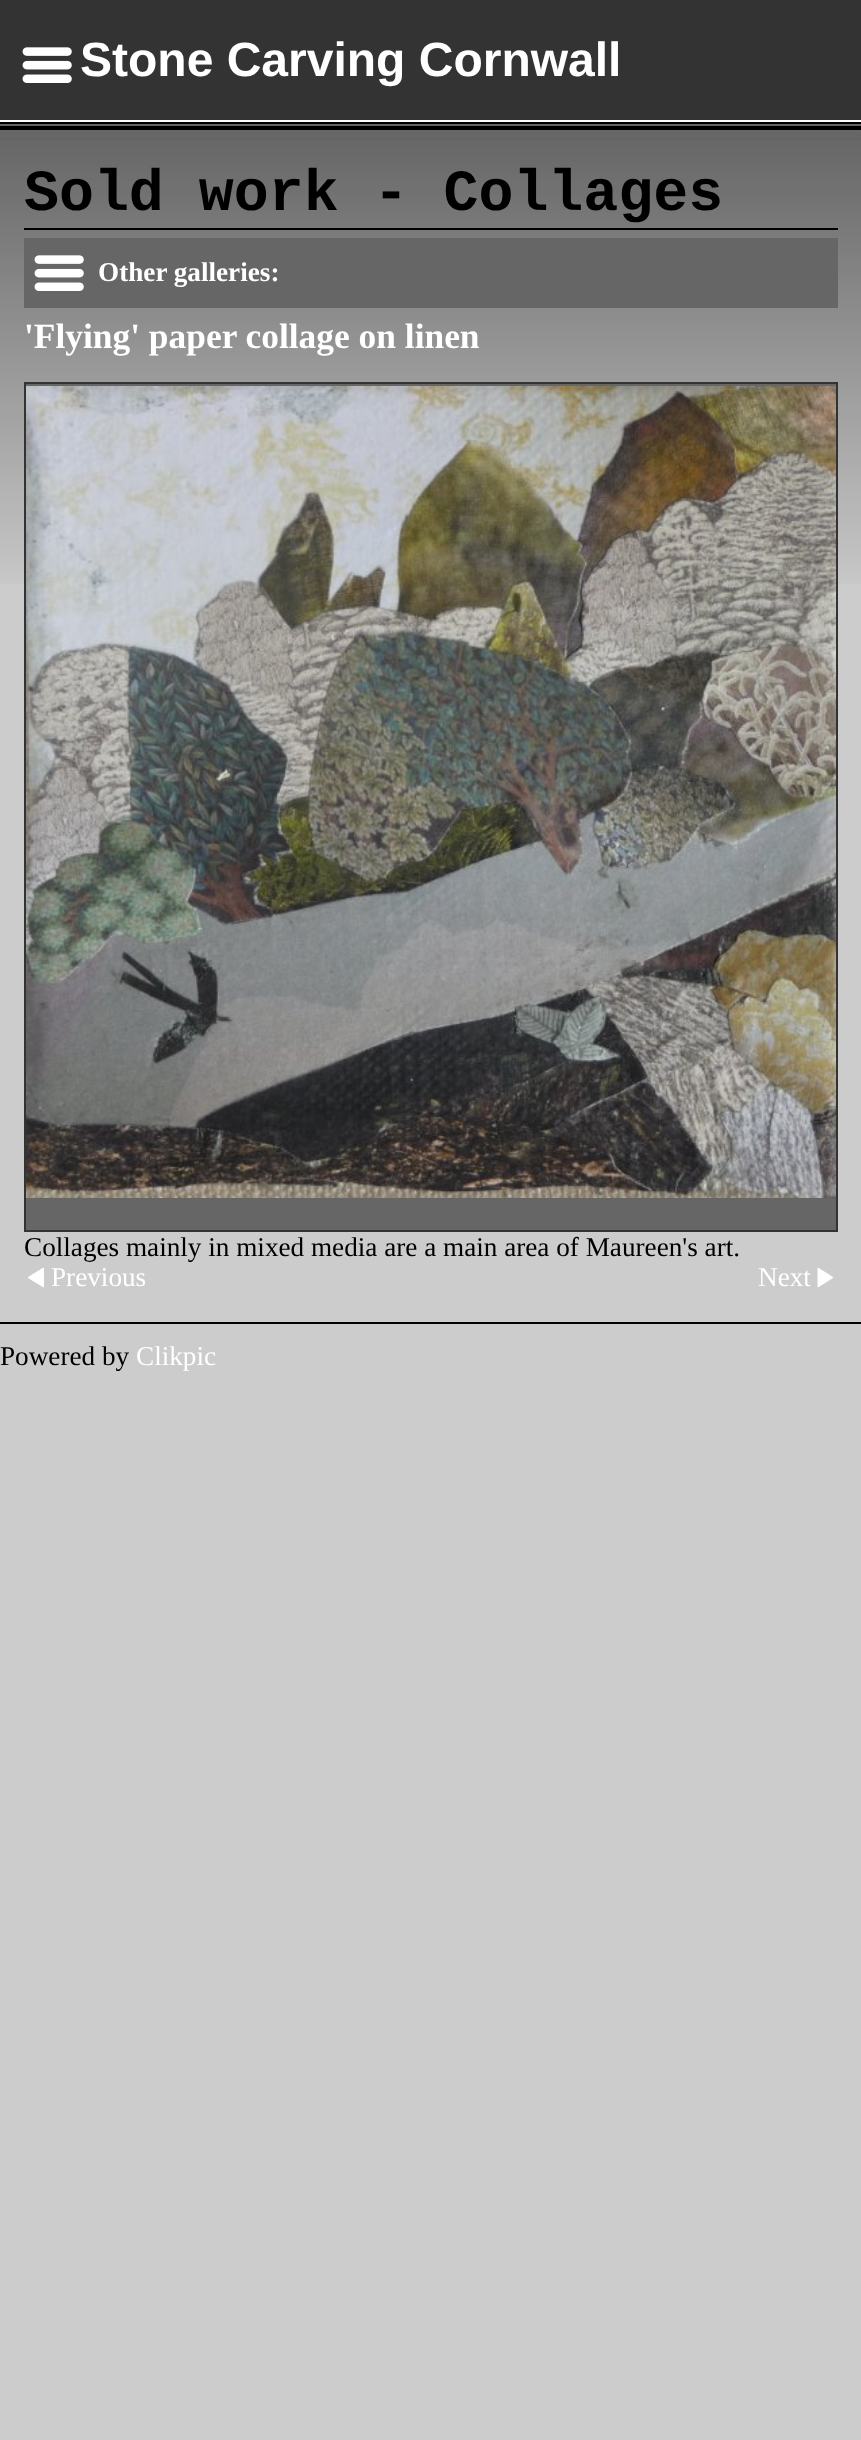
<svg xmlns="http://www.w3.org/2000/svg" width="861" height="2440">
<style>
.a{font:bold 48px Liberation Sans;fill:#fff}
.b{font:bold 58.25px Liberation Mono;fill:#000}
.c{font:bold 27.2px Liberation Serif;fill:#fff}
.d{font:bold 35.4px Liberation Serif;fill:#fff}
.e{font:27.2px Liberation Serif;fill:#000}
.f{font:27.2px Liberation Serif;fill:#fff}
</style>
<rect width="100%" height="100%" fill="#ccc"/>
<path fill="#333" d="M0 0h861v120H0z"/>
<path fill="#fff" d="M0 120h861v2H0z"/>
<image href="1.png" x="22" y="47" width="50" height="36"/>
<image href="2.png" x="0" y="130" width="861" height="454"/>
<path fill="#000" d="M0 122h861v2H0z"/>
<path fill="#666" d="M0 124h861v2H0z"/>
<path fill="#000" d="M0 126h861v4H0z"/>
<path fill="#000" d="M24 228h814v2H24z"/>
<path fill="#666" d="M24 238h814v70H24z"/>
<image href="3.png" x="34" y="255" width="50" height="36"/>
<path fill="#666" stroke="#333" stroke-width="2" d="M25 383h812v848H25z"/>
<image href="4.png" x="26" y="386" width="810" height="812"/>
<path fill="#fff" stroke="#fff" d="M43.5 1268v19l-15.5-9.5z"/>
<path fill="#fff" stroke="#fff" d="M818 1268v19l15-9.5z"/>
<path fill="#000" d="M0 1322h861v2H0z"/>
<text class="a" x="80" y="76">Stone Carving Cornwall</text>
<text class="b" x="24" y="210">Sold work - Collages</text>
<text class="c" x="98" y="281">Other galleries:</text>
<text class="d" x="24" y="348">'Flying' paper collage on linen</text>
<text class="e" x="24" y="1256">Collages mainly in mixed media are a main area of Maureen's art.</text>
<text class="f" x="51" y="1286">Previous</text>
<text class="f" x="758" y="1286">Next</text>
<text class="e" x="0" y="1365">Powered by</text>
<text class="f" x="136" y="1365">Clikpic</text>
</svg>
